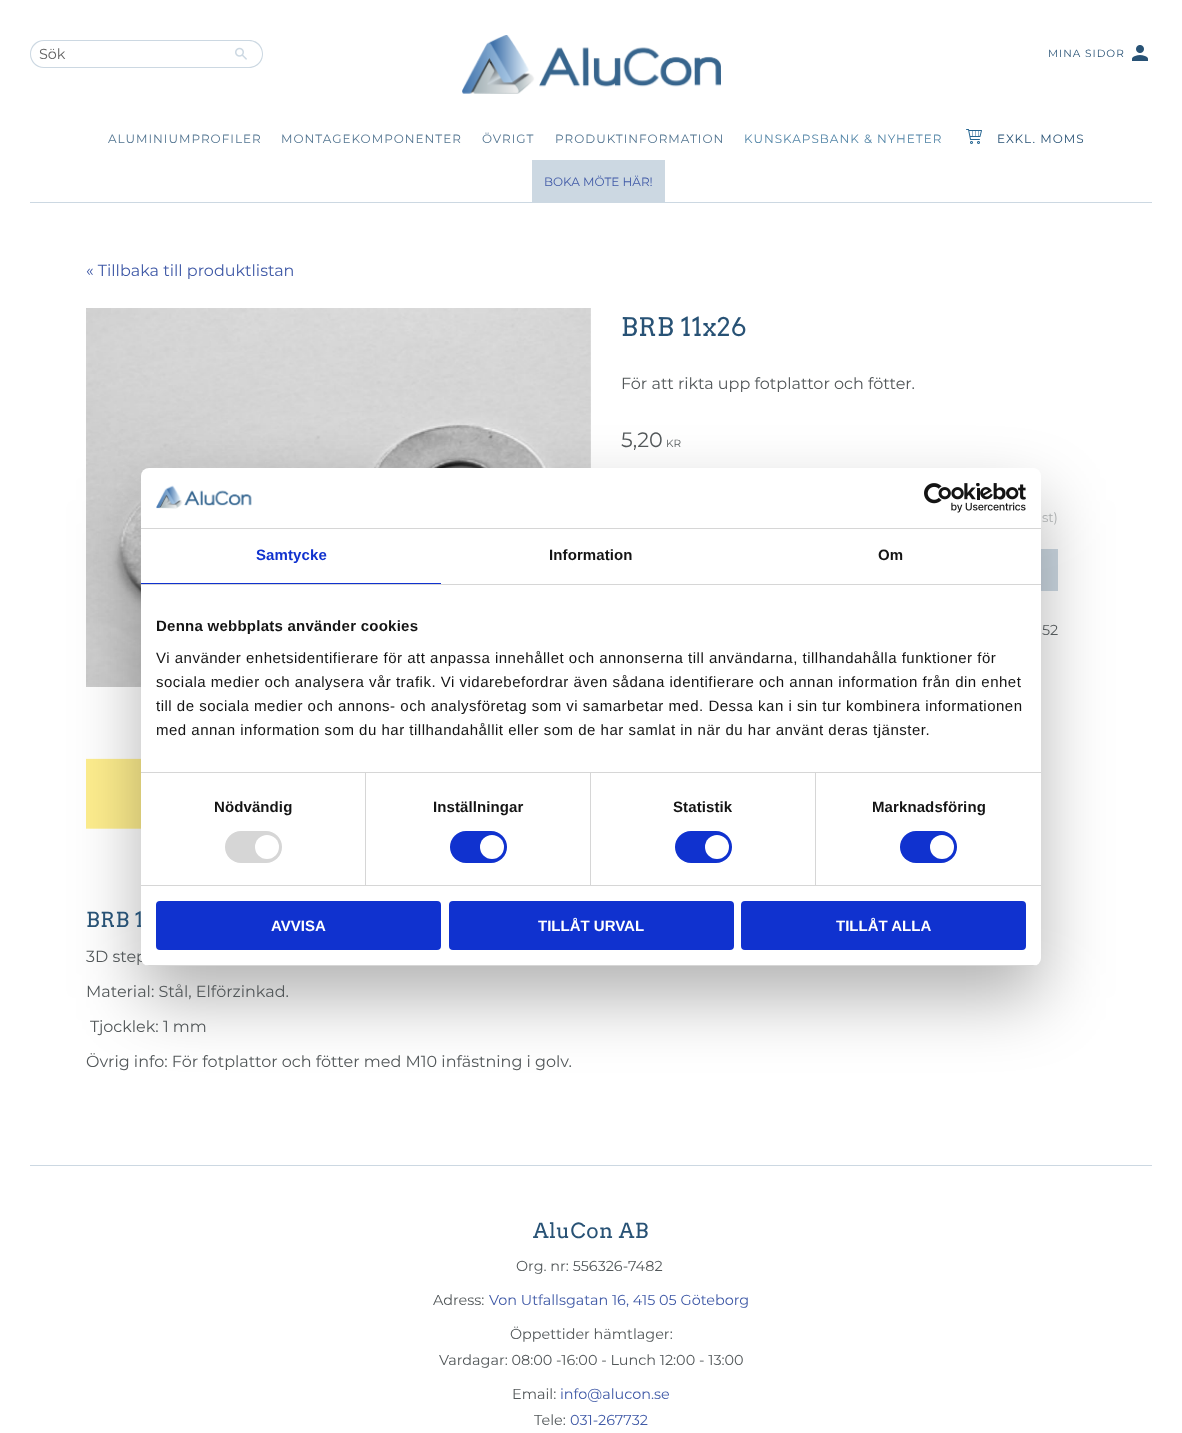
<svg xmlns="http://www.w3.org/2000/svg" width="1182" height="1433">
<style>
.a{font:100 14.4px Montserrat;fill:#646464}
.b{font:100 10.5px Montserrat;letter-spacing:1px;fill:#285275}
.c{font:100 12px Montserrat;letter-spacing:1px;fill:#537591}
.d{font:100 12px Montserrat;letter-spacing:1px;fill:#5285a7}
.e{font:100 12px Montserrat;letter-spacing:1px;fill:#285275}
.f{font:100 12px Montserrat;fill:#405aa7}
.g{font:100 16px Montserrat;fill:#405aa7}
.h{font:25.5px Arvo;letter-spacing:0.5px;fill:#285275}
.i{font:100 16px Montserrat;fill:#53585a}
.j{font:100 20.75px Montserrat;fill:#53585a}
.k{font:100 10.5px Montserrat;fill:#53585a}
.l{font:100 13px Montserrat;fill:#a9acad}
.m{font:100 14.4px Montserrat;fill:#53585a}
.n{font:20.75px Arvo;letter-spacing:0.5px;fill:#285275}
.o{font:100 14.4px Montserrat;fill:#405aa7}
.p{font:bold 15px Liberation Sans;letter-spacing:0.1px;fill:#1032cf}
.q{font:bold 15px Liberation Sans;letter-spacing:0.1px;fill:#141414}
.r{font:bold 15px Liberation Sans;letter-spacing:0.25px;fill:#141414}
.s{font:15px Liberation Sans;letter-spacing:0.5px;fill:#141414}
.t{font:bold 15px Liberation Sans;fill:#fff}
</style>
<defs>
<clipPath id="clip1"><rect x="141" y="468" width="900" height="498" rx="8"/></clipPath>
</defs>
<rect width="100%" height="100%" fill="#fff"/>
<image href="1.png" x="462" y="35" width="259" height="59"/>
<path fill="#ccd8e2" fill-rule="evenodd" d="M44 40h176v28h-176c-8 0-14-6-14-14c0-8 6-14 14-14zm0 1h176v26h-176c-7 0-13-6-13-13c0-7 6-13 13-13z"/>
<path fill="#ccd8e2" fill-rule="evenodd" d="M220 40h29c8 0 14 6 14 14c0 8-6 14-14 14h-29zm0 1h29c7 0 13 6 13 13c0 7-6 13-13 13h-29z"/>
<image href="2.png" x="235" y="47" width="12" height="13"/>
<image href="3.png" x="1132" y="45" width="16" height="16"/>
<path fill="#ccd8e2" d="M30 202h1122v1H30z"/>
<image href="4.png" x="966" y="129" width="16" height="15"/>
<path fill="#ccd8e2" d="M532 160h133v42H532z"/>
<image href="5.png" x="86" y="308" width="505" height="379"/>
<image href="6.png" x="86" y="758" width="55" height="71"/>
<path fill="#ccd8e2" d="M1041 549h17v42H1041z"/>
<path fill="#ccd8e2" d="M30 1165h1122v1H30z"/>
<rect fill="#0000004d" filter="blur(34px)" x="141" y="500" width="900" height="498" rx="8"/>
<text class="a" x="39" y="59">Sök</text>
<text class="b" x="1048" y="57">MINA SIDOR</text>
<text class="c" x="108" y="143">ALUMINIUMPROFILER</text>
<text class="c" x="281" y="143">MONTAGEKOMPONENTER</text>
<text class="c" x="482" y="143">ÖVRIGT</text>
<text class="c" x="555" y="143">PRODUKTINFORMATION</text>
<text class="d" x="744" y="143">KUNSKAPSBANK &amp; NYHETER</text>
<text class="e" x="997" y="143">EXKL. MOMS</text>
<text class="f" x="544" y="186">BOKA MÖTE HÄR!</text>
<text class="g" x="86" y="276">« Tillbaka till produktlistan</text>
<text class="h" x="621" y="336">BRB 11x26</text>
<text class="i" x="621" y="389">För att rikta upp fotplattor och fötter.</text>
<text class="j" x="621" y="447">5,20</text>
<text class="k" x="666" y="447">KR</text>
<text class="l" x="1042" y="522">st)</text>
<text class="m" x="1042" y="635">52</text>
<text class="n" x="86" y="927">BRB 1</text>
<text class="i" x="86" y="962">3D step</text>
<text class="i" x="86" y="997">Material: Stål, Elförzinkad.</text>
<text class="i" x="90" y="1032">Tjocklek: 1 mm</text>
<text class="i" x="86" y="1067">Övrig info: För fotplattor och fötter med M10 infästning i golv.</text>
<text class="n" x="533" y="1238">AluCon AB</text>
<text class="m" x="516" y="1271">Org. nr: 556326-7482</text>
<text class="m" x="433" y="1305">Adress:</text>
<text class="o" x="489" y="1305">Von Utfallsgatan 16, 415 05 Göteborg</text>
<text class="m" x="510" y="1339">Öppettider hämtlager:</text>
<text class="m" x="439" y="1365">Vardagar: 08:00 -16:00 - Lunch 12:00 - 13:00</text>
<text class="m" x="512" y="1399">Email:</text>
<text class="o" x="560" y="1399">info@alucon.se</text>
<text class="m" x="534" y="1425">Tele:</text>
<text class="o" x="570" y="1425">031-267732</text>
<rect fill="#fff" x="141" y="468" width="900" height="498" rx="8"/>
<path fill="#d6d6d6" d="M141 528h900v1H141z"/>
<image href="7.png" x="156" y="485" width="96" height="24"/>
<image href="8.png" x="924" y="483" width="102" height="30"/>
<path fill="#d6d6d6" d="M141 584h900v1H141z"/>
<path fill="#1032cf" d="M141 583h300v1H141z"/>
<text class="p" x="256" y="560">Samtycke</text>
<text class="q" x="549" y="560">Information</text>
<text class="q" x="878" y="560">Om</text>
<path fill="#d6d6d6" d="M141 772h900v1H141z"/>
<text class="r" x="156" y="631">Denna webbplats använder cookies</text>
<text class="s" x="156" y="663">Vi använder enhetsidentifierare för att anpassa innehållet och annonserna till användarna, tillhandahålla funktioner för</text>
<text class="s" x="156" y="687">sociala medier och analysera vår trafik. Vi vidarebefordrar även sådana identifierare och annan information från din enhet</text>
<text class="s" x="156" y="711">till de sociala medier och annons- och analysföretag som vi samarbetar med. Dessa kan i sin tur kombinera informationen</text>
<text class="s" x="156" y="735">med annan information som du har tillhandahållit eller som de har samlat in när du har använt deras tjänster.</text>
<path fill="#d6d6d6" d="M141 885h900v1H141z"/>
<path fill="#d6d6d6" d="M365 773h1v112H365z"/>
<text class="q" x="214" y="812">Nödvändig</text>
<rect fill="#d6d6d6" x="225" y="831" width="57" height="32" rx="16"/>
<circle fill="#fff" cx="267" cy="847" r="12"/>
<path fill="#d6d6d6" d="M590 773h1v112H590z"/>
<text class="q" x="433" y="812">Inställningar</text>
<rect fill="#1032cf" x="450" y="831" width="57" height="32" rx="16"/>
<circle fill="#fff" cx="492" cy="847" r="12"/>
<path fill="#d6d6d6" d="M815 773h1v112H815z"/>
<text class="q" x="673" y="812">Statistik</text>
<rect fill="#1032cf" x="675" y="831" width="57" height="32" rx="16"/>
<circle fill="#fff" cx="717" cy="847" r="12"/>
<text class="q" x="872" y="812">Marknadsföring</text>
<rect fill="#1032cf" x="900" y="831" width="57" height="32" rx="16"/>
<circle fill="#fff" cx="942" cy="847" r="12"/>
<g clip-path="url(#clip1)">
<path fill="#d6d6d6" d="M141 965h900v1H141z"/>
</g>
<rect fill="#1032cf" stroke="#1032cf" stroke-width="2" x="157" y="902" width="283" height="47" rx="3"/>
<text class="t" x="271" y="931">AVVISA</text>
<rect fill="#1032cf" stroke="#1032cf" stroke-width="2" x="450" y="902" width="283" height="47" rx="3"/>
<text class="t" x="538" y="931">TILLÅT URVAL</text>
<rect fill="#1032cf" stroke="#1032cf" stroke-width="2" x="742" y="902" width="283" height="47" rx="3"/>
<text class="t" x="836" y="931">TILLÅT ALLA</text>
</svg>
